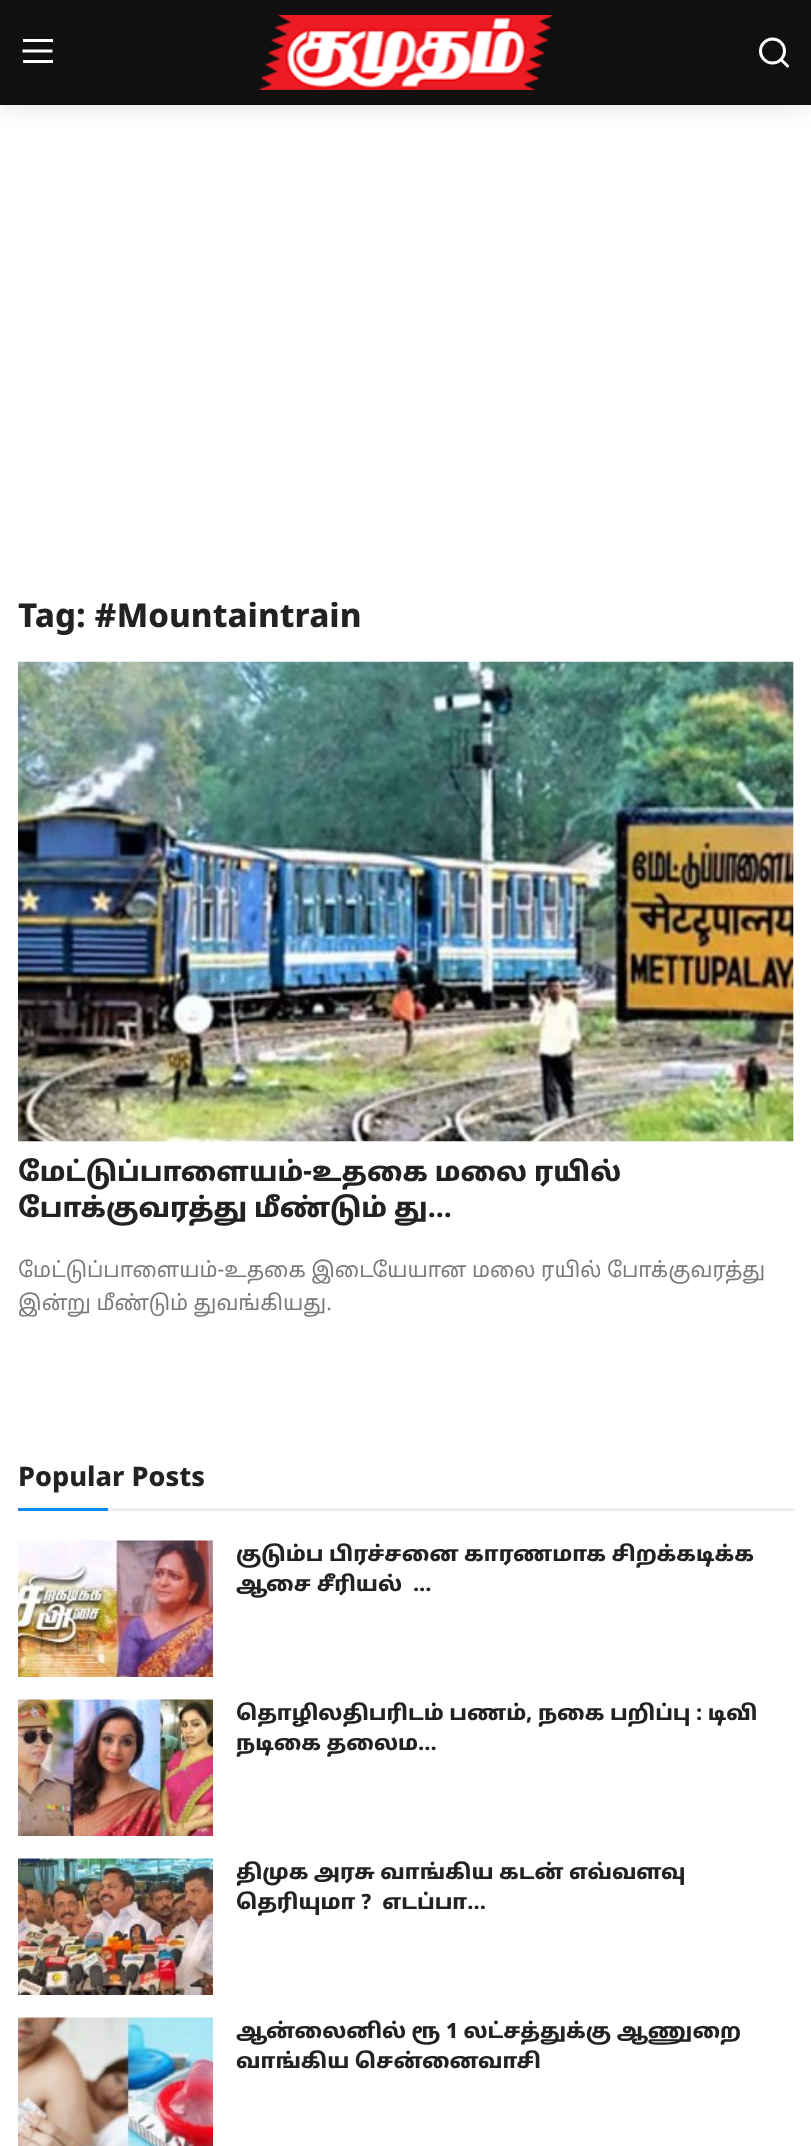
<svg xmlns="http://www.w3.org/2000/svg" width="811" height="2146">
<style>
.a{font:800 33px Noto Sans Tamil;fill:#222}
.b{font:800 27px Noto Sans Tamil;fill:#222}
.c{font:21px Noto Sans Tamil;fill:#7a7a7a}
.d{font:800 21px Noto Sans Tamil;fill:#222}
</style>
<rect width="100%" height="100%" fill="#fff"/>
<path fill="#0000001a" filter="blur(11px)" d="M0 3h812v105H0z"/>
<path fill="#101010" d="M0 0h811v105H0z"/>
<path fill="#fff" d="M23 39h30v3H23z"/>
<path fill="none" stroke="#fff" stroke-width="3" d="M22.5 51h30"/>
<path fill="#fff" d="M23 60h30v3H23z"/>
<image href="1.png" x="258" y="15" width="296" height="75"/>
<circle fill="none" stroke="#fff" stroke-width="3" cx="772.5" cy="51" r="12"/>
<path fill="none" stroke="#fff" stroke-width="3" stroke-linecap="round" stroke-linejoin="round" d="M787.5 66l-6.5-6.5"/>
<path fill="#fafafa" d="M18 662h776v480H18z"/>
<image href="2.png" x="18" y="661" width="776" height="481"/>
<path fill="#eee" d="M108 1508h686v3H108z"/>
<path fill="#0f88f1" d="M18 1508h90v3H18z"/>
<image href="3.png" x="18" y="1540" width="195" height="137"/>
<image href="4.png" x="18" y="1699" width="195" height="137"/>
<image href="5.png" x="18" y="1858" width="195" height="137"/>
<image href="6.png" x="18" y="2017" width="195" height="129"/>
<text class="a" x="18" y="627">Tag: #Mountaintrain</text>
<text class="b" x="18" y="1181">மேட்டுப்பாளையம்-உதகை மலை ரயில்</text>
<text class="b" x="18" y="1217">போக்குவரத்து மீண்டும் து...</text>
<text class="c" x="18" y="1277">மேட்டுப்பாளையம்-உதகை இடையேயான மலை ரயில் போக்குவரத்து</text>
<text class="c" x="18" y="1310">இன்று மீண்டும் துவங்கியது.</text>
<text class="b" x="18" y="1486">Popular Posts</text>
<text class="d" x="236" y="1561">குடும்ப பிரச்சனை காரணமாக சிறக்கடிக்க</text>
<text class="d" xml:space="preserve" x="236" y="1591">ஆசை சீரியல்  ...</text>
<text class="d" x="236" y="1720">தொழிலதிபரிடம் பணம், நகை பறிப்பு : டிவி</text>
<text class="d" x="236" y="1750">நடிகை தலைம...</text>
<text class="d" x="236" y="1879">திமுக அரசு வாங்கிய கடன் எவ்வளவு</text>
<text class="d" xml:space="preserve" x="236" y="1909">தெரியுமா ?  எடப்பா...</text>
<text class="d" x="236" y="2038">ஆன்லைனில் ரூ 1 லட்சத்துக்கு ஆணுறை</text>
<text class="d" x="236" y="2068">வாங்கிய சென்னைவாசி</text>
</svg>
